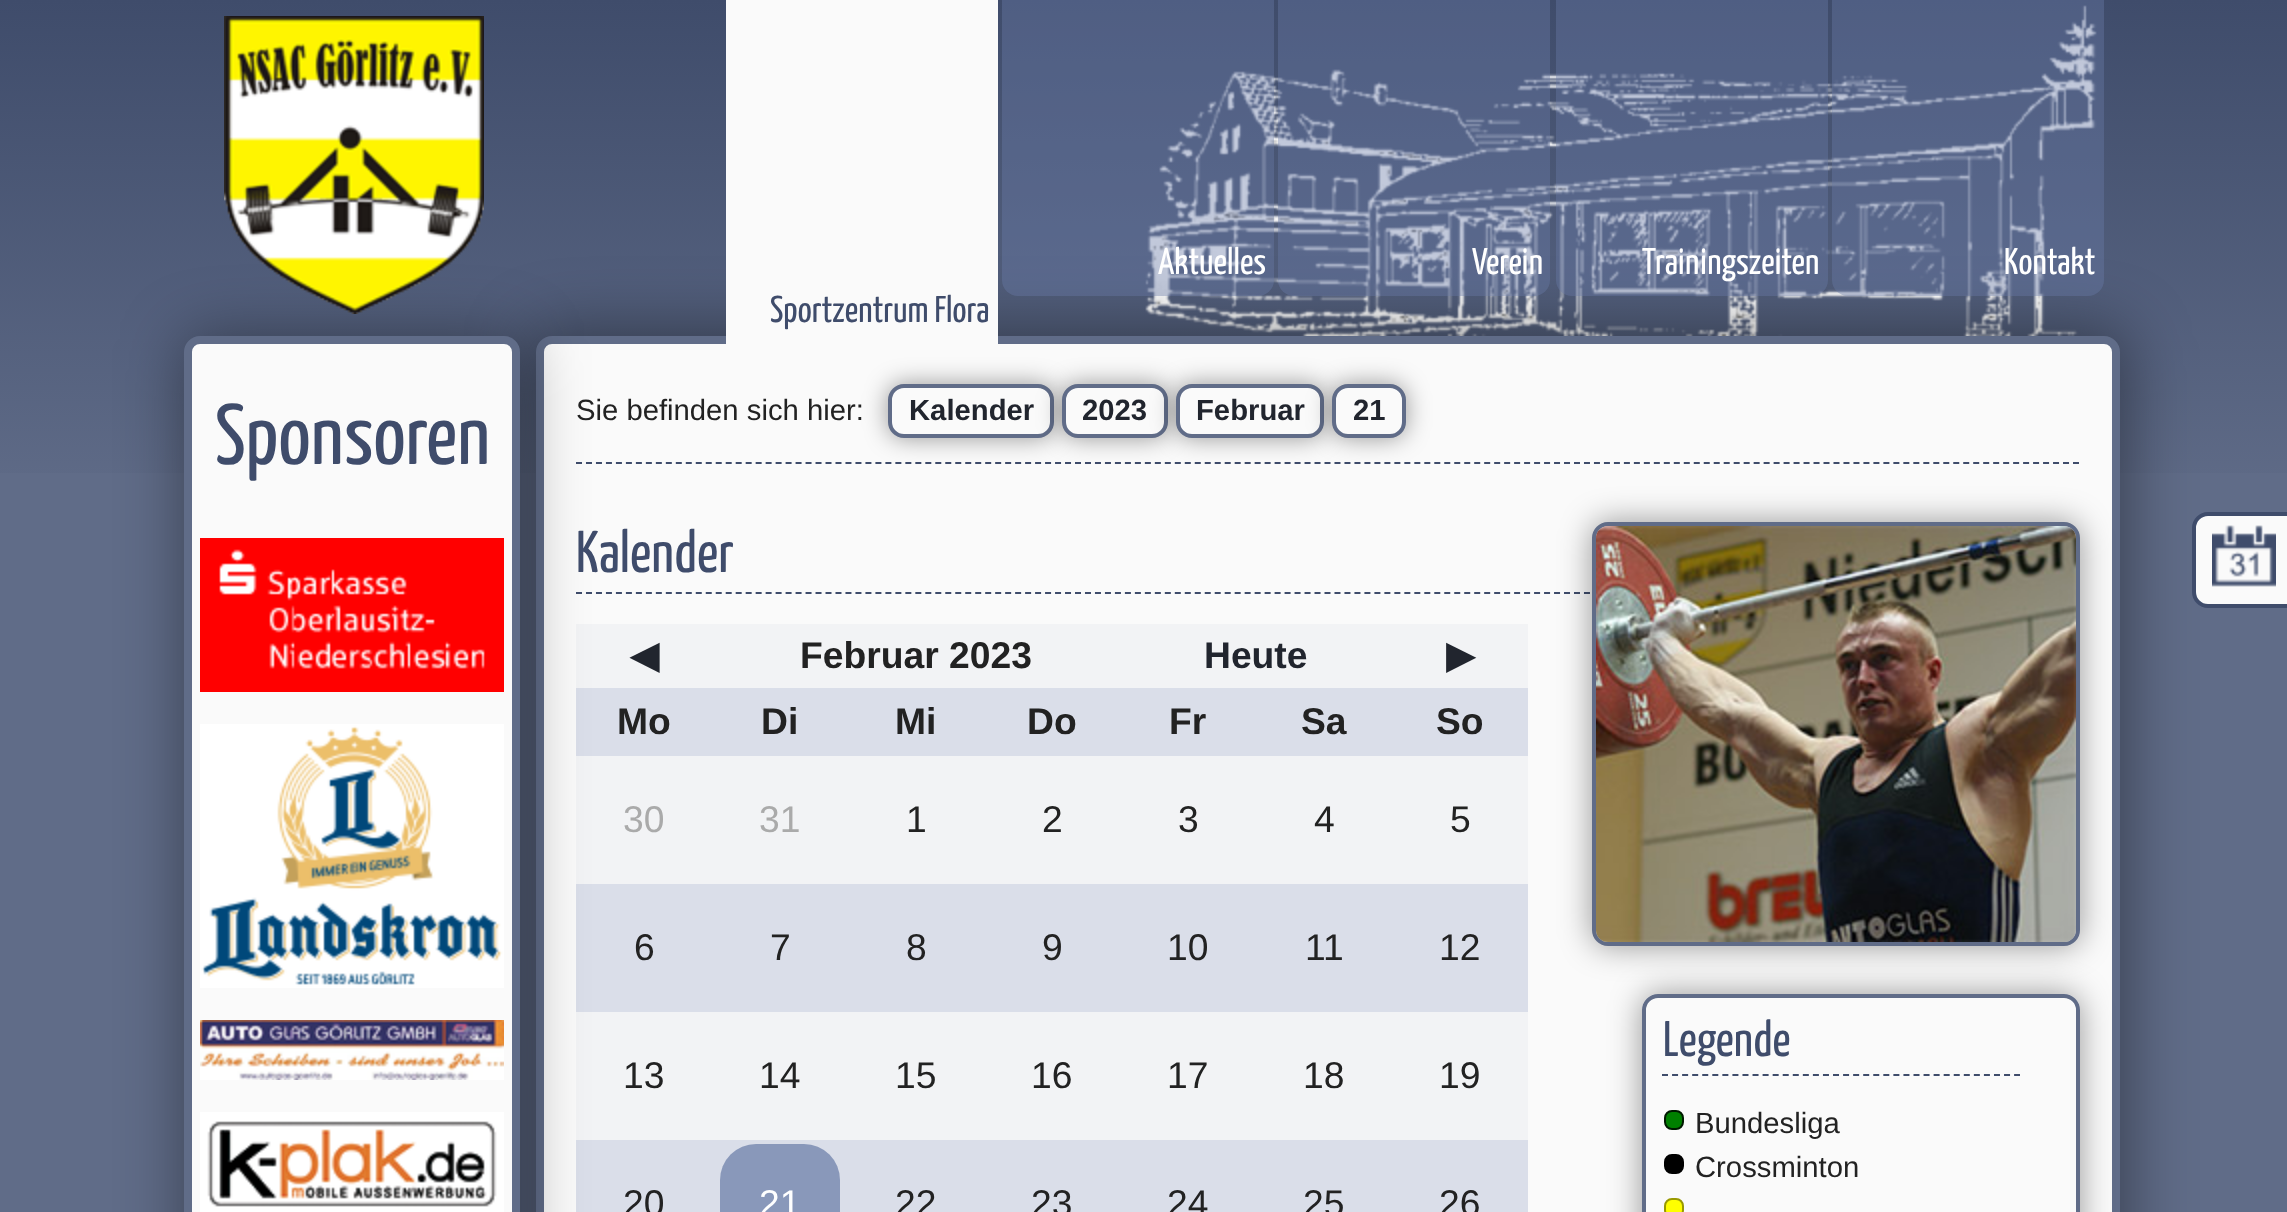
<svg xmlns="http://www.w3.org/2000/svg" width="2287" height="1212">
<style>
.a{font:85.5px Yanone Kaffeesatz;fill:#3f4c6b}
.b{font:37.25px Yanone Kaffeesatz;fill:#fff}
.c{font:37.25px Yanone Kaffeesatz;fill:#3f4c6b}
.d{font:29.25px Liberation Sans;fill:#222}
.e{font:bold 29.25px Liberation Sans;fill:#21252e}
.f{font:59px Yanone Kaffeesatz;fill:#3f4c6b}
.g{font:bold 37.25px DejaVu Sans;fill:#21252e}
.h{font:bold 37.25px Liberation Sans;fill:#222}
.i{font:bold 37.25px Liberation Sans;fill:#21252e}
.j{font:37.25px Liberation Sans;fill:#aaa}
.k{font:37.25px Liberation Sans;fill:#222}
.l{font:37.25px Liberation Sans;fill:#fff}
.m{font:50px Yanone Kaffeesatz;fill:#3f4c6b}
</style>
<defs>
<linearGradient id="g1" gradientUnits="userSpaceOnUse" x1="1144" y1="0" x2="1144" y2="512"><stop offset="0" stop-color="#3f4c6b"/><stop offset="1" stop-color="#606c88"/></linearGradient>
<clipPath id="clip1"><path d="M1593 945h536v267h-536zm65 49h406c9 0 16 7 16 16v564c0 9-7 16-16 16h-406c-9 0-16-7-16-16v-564c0-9 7-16 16-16z" clip-rule="evenodd"/></clipPath>
</defs>
<rect width="100%" height="100%" fill="#606c88"/>
<path fill="url(#g1)" d="M0 0h2287v473H0z"/>
<image href="6.png" x="1145" y="5" width="952" height="331"/>
<rect fill="#00000066" filter="blur(32px)" x="528" y="328" width="1600" height="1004" rx="24"/>
<rect fill="#fafafa" stroke="#606c88" stroke-width="8" x="540" y="340" width="1576" height="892" rx="12"/>
<path fill="none" stroke="#3f4c6b" stroke-width="2" stroke-dasharray="6 3.98" d="M576 463h1504"/>
<path fill="none" stroke="#3f4c6b" stroke-width="2" stroke-dasharray="6 3.98" d="M576 593h1504"/>
<path fill="#f2f3f5" d="M576 624h952v64H576z"/>
<path fill="#dadee9" d="M576 688h952v68H576z"/>
<path fill="#f2f3f5" d="M576 756h952v128H576z"/>
<path fill="#dadee9" d="M576 884h952v128H576z"/>
<path fill="#f2f3f5" d="M576 1012h952v128H576z"/>
<path fill="#dadee9" d="M576 1140h952v72H576z"/>
<rect fill="#00000066" filter="blur(32px)" x="184" y="336" width="336" height="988" rx="16"/>
<image href="1.png" x="224" y="16" width="260" height="298"/>
<rect fill="#fafafa" stroke="#606c88" stroke-width="8" x="188" y="340" width="328" height="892" rx="12"/>
<image href="2.png" x="200" y="538" width="304" height="154"/>
<image href="3.png" x="200" y="724" width="304" height="264"/>
<image href="4.png" x="200" y="1020" width="304" height="60"/>
<image href="5.png" x="200" y="1112" width="304" height="100"/>
<rect fill="#697ba766" x="1002" y="-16" width="272" height="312" rx="16"/>
<rect fill="#697ba766" x="1278" y="-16" width="272" height="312" rx="16"/>
<rect fill="#697ba766" x="1556" y="-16" width="272" height="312" rx="16"/>
<rect fill="#697ba766" x="1832" y="-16" width="272" height="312" rx="16"/>
<path fill="#fafafa" d="M726 0h272v344H726z"/>
<rect fill="#00000066" filter="blur(12px)" x="888" y="384" width="166" height="54" rx="16"/>
<rect fill="#fafafa" stroke="#606c88" stroke-width="4" x="890" y="386" width="162" height="50" rx="14"/>
<rect fill="#00000066" filter="blur(12px)" x="1062" y="384" width="106" height="54" rx="16"/>
<rect fill="#fafafa" stroke="#606c88" stroke-width="4" x="1064" y="386" width="102" height="50" rx="14"/>
<rect fill="#00000066" filter="blur(12px)" x="1176" y="384" width="148" height="54" rx="16"/>
<rect fill="#fafafa" stroke="#606c88" stroke-width="4" x="1178" y="386" width="144" height="50" rx="14"/>
<rect fill="#00000066" filter="blur(12px)" x="1332" y="384" width="74" height="54" rx="16"/>
<rect fill="#fafafa" stroke="#606c88" stroke-width="4" x="1334" y="386" width="70" height="50" rx="14"/>
<rect fill="#8998ba" x="720" y="1144" width="120" height="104" rx="36"/>
<rect fill="#00000066" filter="blur(16px)" x="1592" y="522" width="488" height="424" rx="16"/>
<rect fill="none" stroke="#606c88" stroke-width="4" x="1594" y="524" width="484" height="420" rx="14"/>
<image href="7.png" x="1596" y="526" width="480" height="416"/>
<g clip-path="url(#clip1)">
<rect fill="#00000066" filter="blur(16px)" x="1642" y="994" width="438" height="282" rx="16"/>
</g>
<rect fill="none" stroke="#606c88" stroke-width="4" x="1644" y="996" width="434" height="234" rx="14"/>
<path fill="none" stroke="#3f4c6b" stroke-width="2" stroke-dasharray="6 4.06" d="M1662 1075h358"/>
<rect fill="#008000" stroke="#001a00" stroke-width="2" x="1665" y="1111" width="18" height="18" rx="7"/>
<rect fill="#000" stroke="#000" stroke-width="2" x="1665" y="1155" width="18" height="18" rx="7"/>
<rect fill="#ff0" stroke="#990" stroke-width="2" x="1665" y="1199" width="18" height="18" rx="7"/>
<rect fill="#fafafa" stroke="#3f4c6b" stroke-width="4" x="2194" y="514" width="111" height="92" rx="14"/>
<image href="8.png" x="2212" y="525" width="64" height="62"/>
<text class="a" x="215" y="464">Sponsoren</text>
<text class="b" x="1158" y="274">Aktuelles</text>
<text class="b" x="1472" y="274">Verein</text>
<text class="b" x="1642" y="274">Trainingszeiten</text>
<text class="b" x="2004" y="274">Kontakt</text>
<text class="c" x="770" y="322">Sportzentrum Flora</text>
<text class="d" x="576" y="420">Sie befinden sich hier:</text>
<text class="e" x="909" y="420">Kalender</text>
<text class="e" x="1082" y="420">2023</text>
<text class="e" x="1196" y="420">Februar</text>
<text class="e" x="1353" y="420">21</text>
<text class="f" x="576" y="572">Kalender</text>
<text class="g" x="630" y="668">◀</text>
<text class="h" x="800" y="668">Februar 2023</text>
<text class="i" x="1204" y="668">Heute</text>
<text class="g" x="1446" y="668">▶</text>
<text class="h" x="617" y="734">Mo</text>
<text class="h" x="761" y="734">Di</text>
<text class="h" x="895" y="734">Mi</text>
<text class="h" x="1027" y="734">Do</text>
<text class="h" x="1169" y="734">Fr</text>
<text class="h" x="1301" y="734">Sa</text>
<text class="h" x="1436" y="734">So</text>
<text class="j" x="623" y="832">30</text>
<text class="j" x="759" y="832">31</text>
<text class="k" x="906" y="832">1</text>
<text class="k" x="1042" y="832">2</text>
<text class="k" x="1178" y="832">3</text>
<text class="k" x="1314" y="832">4</text>
<text class="k" x="1450" y="832">5</text>
<text class="k" x="634" y="960">6</text>
<text class="k" x="770" y="960">7</text>
<text class="k" x="906" y="960">8</text>
<text class="k" x="1042" y="960">9</text>
<text class="k" x="1167" y="960">10</text>
<text class="k" x="1305" y="960">11</text>
<text class="k" x="1439" y="960">12</text>
<text class="k" x="623" y="1088">13</text>
<text class="k" x="759" y="1088">14</text>
<text class="k" x="895" y="1088">15</text>
<text class="k" x="1031" y="1088">16</text>
<text class="k" x="1167" y="1088">17</text>
<text class="k" x="1303" y="1088">18</text>
<text class="k" x="1439" y="1088">19</text>
<text class="k" x="623" y="1216">20</text>
<text class="l" x="759" y="1216">21</text>
<text class="k" x="895" y="1216">22</text>
<text class="k" x="1031" y="1216">23</text>
<text class="k" x="1167" y="1216">24</text>
<text class="k" x="1303" y="1216">25</text>
<text class="k" x="1439" y="1216">26</text>
<text class="m" x="1663" y="1056">Legende</text>
<text class="d" x="1695" y="1133">Bundesliga</text>
<text class="d" x="1695" y="1177">Crossminton</text>
</svg>
